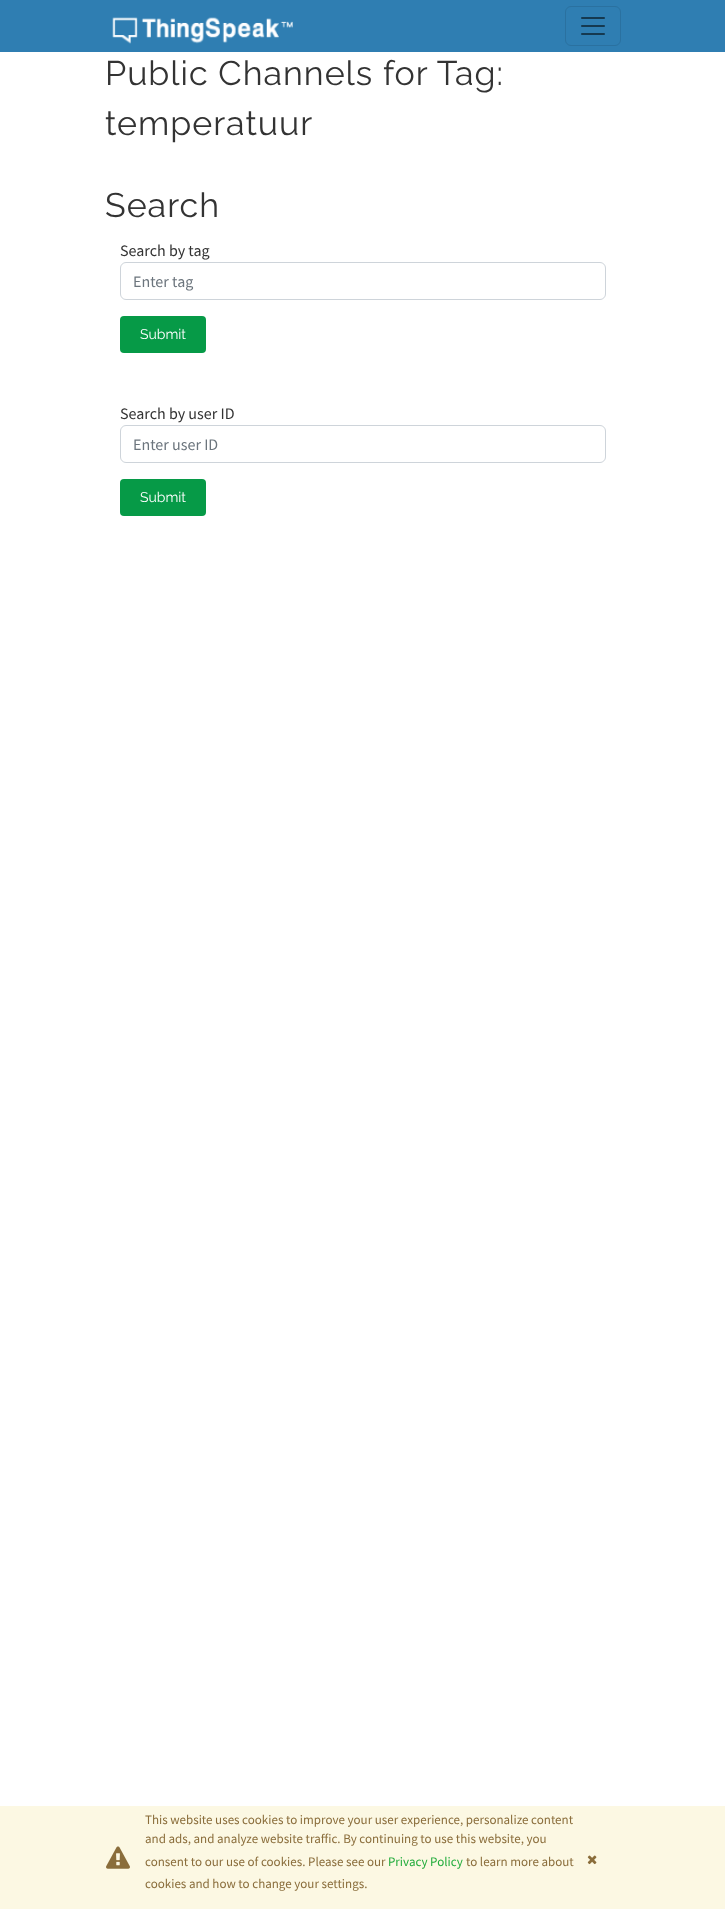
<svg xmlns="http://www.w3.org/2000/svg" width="725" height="1909">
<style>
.a{font:100 34px Raleway;letter-spacing:1px;fill:#333}
.b{font:16px Source Sans Pro;fill:#333}
.c{font:16px Source Sans Pro;fill:#6c757d}
.d{font:100 14px Raleway;fill:#fff}
.e{font:13px Source Sans Pro;fill:#8a6d3b}
.f{font:13px Source Sans Pro;fill:#22ac3c}
</style>
<rect width="100%" height="100%" fill="#fff"/>
<path fill="#2f7eb2" d="M0 0h725v52H0z"/>
<image href="1.png" x="112" y="17" width="181" height="27"/>
<rect fill="none" stroke="#2a71a0" x="565.5" y="6.5" width="55" height="39" rx="5.5"/>
<image href="2.png" x="581" y="17" width="24" height="18"/>
<rect fill="none" stroke="#ced4da" x="120.5" y="262.5" width="485" height="37" rx="5.5"/>
<rect fill="#069a47" x="120" y="316" width="86" height="37" rx="4"/>
<rect fill="none" stroke="#ced4da" x="120.5" y="425.5" width="485" height="37" rx="5.5"/>
<rect fill="#069a47" x="120" y="479" width="86" height="37" rx="4"/>
<path fill="#fcf8e3" d="M0 1806h725v103H0z"/>
<image href="3.png" x="106" y="1846" width="24" height="23"/>
<image href="4.png" x="587" y="1855" width="10" height="10"/>
<text class="a" x="105" y="85">Public Channels for Tag:</text>
<text class="a" x="105" y="135">temperatuur</text>
<text class="a" x="105" y="217">Search</text>
<text class="b" x="120" y="256">Search by tag</text>
<text class="c" x="133" y="287">Enter tag</text>
<text class="d" x="140" y="339">Submit</text>
<text class="b" x="120" y="419">Search by user ID</text>
<text class="c" x="133" y="450">Enter user ID</text>
<text class="d" x="140" y="502">Submit</text>
<text class="e" x="145" y="1824">This website uses cookies to improve your user experience, personalize content</text>
<text class="e" x="145" y="1843">and ads, and analyze website traffic. By continuing to use this website, you</text>
<text class="e" x="145" y="1866">consent to our use of cookies. Please see our</text>
<text class="f" x="388" y="1866">Privacy Policy</text>
<text class="e" x="466" y="1866">to learn more about</text>
<text class="e" x="145" y="1888">cookies and how to change your settings.</text>
</svg>
